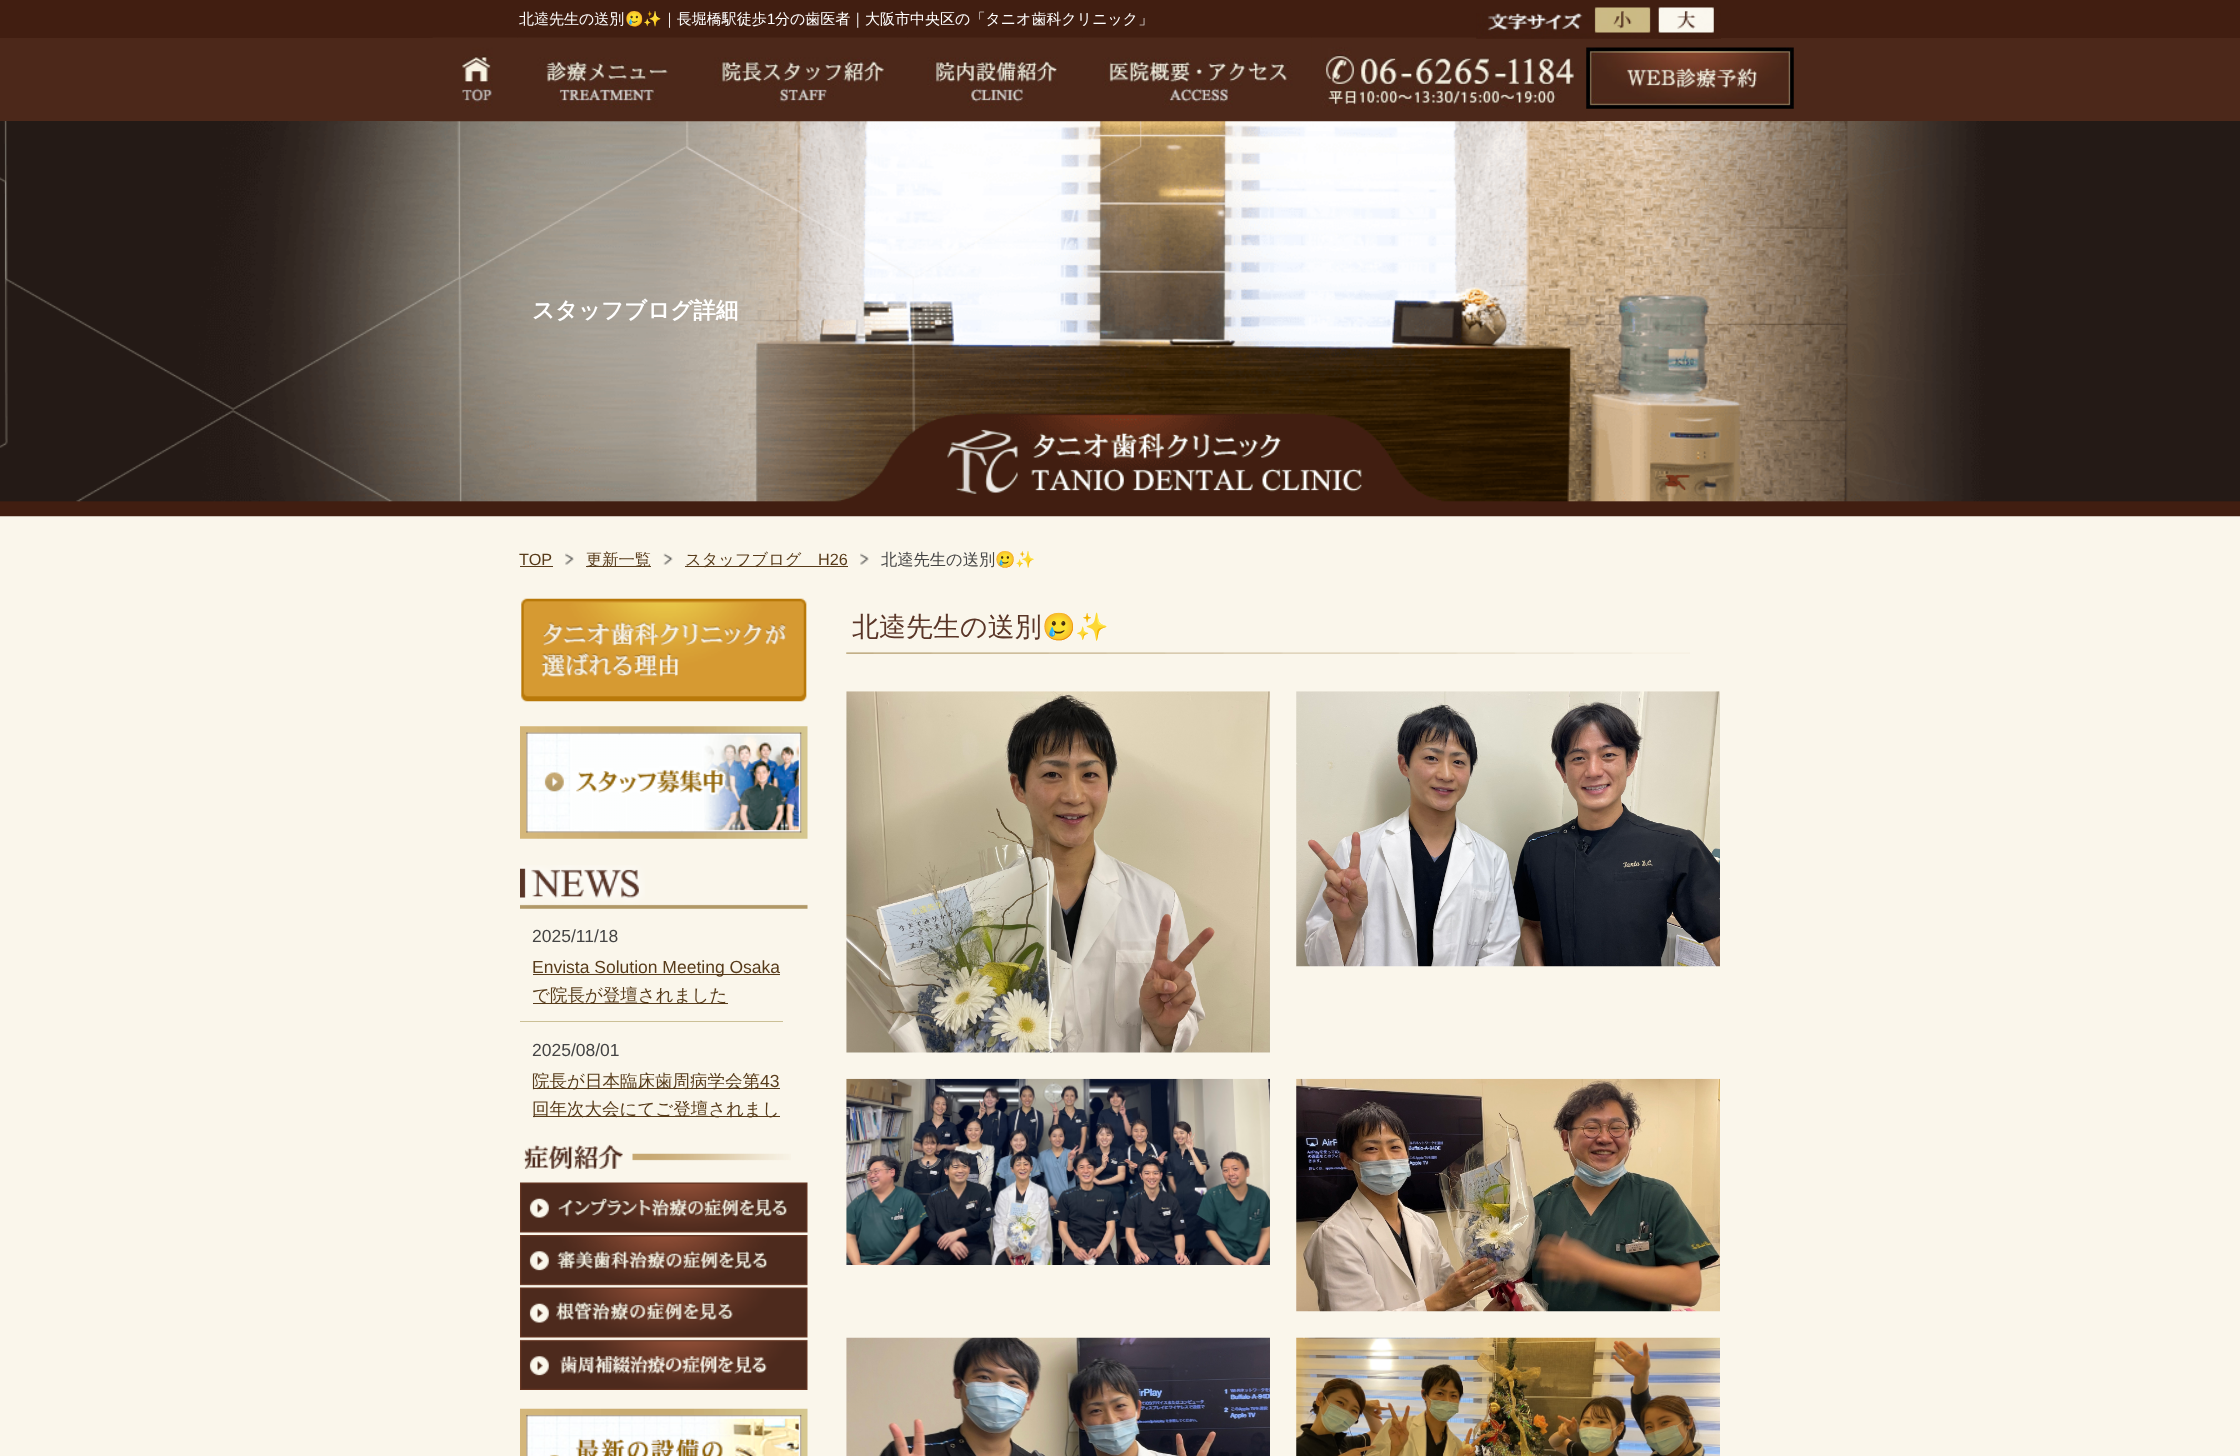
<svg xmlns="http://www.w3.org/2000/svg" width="2240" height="1456">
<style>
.a{font:500 15px WenQuanYi Zen Hei;fill:#fff}
.b{font:15px Noto Color Emoji;fill:#fff}
.c{font:15px Liberation Sans;fill:#fff}
.d{font:bold 22.5px WenQuanYi Zen Hei;fill:#fff}
.e{font:16.25px Liberation Sans;fill:#573b1a}
.f{font:500 16.25px WenQuanYi Zen Hei;fill:#573b1a}
.g{font:500 16.25px WenQuanYi Zen Hei;fill:#444}
.h{font:16.25px Noto Color Emoji;fill:#444}
.i{font:500 27px WenQuanYi Zen Hei;fill:#593527}
.j{font:27px Noto Color Emoji;fill:#593527}
.k{font:17.5px Liberation Sans;fill:#444}
.l{font:17.5px Liberation Sans;fill:#573b1a}
.m{font:500 17.5px WenQuanYi Zen Hei;fill:#573b1a}
</style>
<rect width="100%" height="100%" fill="#faf6eb"/>
<image href="1.png" x="0" y="0" width="2240" height="517"/>
<path fill="#4c281a" d="M0 38h2240v83H0z"/>
<image href="8.png" x="695" y="37" width="213" height="85"/>
<image href="9.png" x="907" y="37" width="176" height="85"/>
<image href="10.png" x="1082" y="37" width="230" height="85"/>
<image href="11.png" x="1311" y="37" width="276" height="85"/>
<image href="2.png" x="1476" y="13" width="118" height="26"/>
<image href="3.png" x="1594" y="7" width="61" height="32"/>
<image href="4.png" x="1655" y="5" width="66" height="34"/>
<image href="5.png" x="1658" y="7" width="56" height="32"/>
<image href="6.png" x="432" y="37" width="86" height="85"/>
<image href="7.png" x="517" y="37" width="178" height="85"/>
<image href="12.png" x="1586" y="47" width="208" height="62"/>
<path fill="#573b1a" d="M520 566h33v1H520z"/>
<image href="13.png" x="565" y="553" width="9" height="12"/>
<path fill="#573b1a" d="M586 566h65v1H586z"/>
<image href="14.png" x="663" y="553" width="10" height="12"/>
<path fill="#573b1a" d="M685 566h163v1H685z"/>
<image href="15.png" x="860" y="553" width="9" height="12"/>
<image href="16.png" x="846" y="652" width="844" height="2"/>
<image href="17.png" x="846" y="691" width="424" height="362"/>
<image href="18.png" x="1296" y="691" width="424" height="276"/>
<image href="19.png" x="846" y="1078" width="424" height="187"/>
<image href="20.png" x="1296" y="1078" width="424" height="234"/>
<image href="21.png" x="846" y="1337" width="424" height="119"/>
<image href="22.png" x="1296" y="1337" width="424" height="119"/>
<image href="23.png" x="521" y="598" width="286" height="104"/>
<image href="24.png" x="520" y="726" width="288" height="113"/>
<image href="25.png" x="520" y="865" width="288" height="44"/>
<path fill="#cbc096" d="M520 1021h263v1H520z"/>
<path fill="#573b1a" d="M533 974h247v1H533z"/>
<path fill="#573b1a" d="M533 1003h195v1H533z"/>
<path fill="#573b1a" d="M533 1088h247v1H533z"/>
<path fill="#573b1a" d="M533 1116h247v1H533z"/>
<image href="26.png" x="523" y="1144" width="268" height="26"/>
<image href="27.png" x="520" y="1182" width="288" height="51"/>
<image href="28.png" x="520" y="1235" width="288" height="51"/>
<image href="29.png" x="520" y="1287" width="288" height="51"/>
<image href="30.png" x="520" y="1339" width="288" height="51"/>
<image href="31.png" x="520" y="1408" width="288" height="48"/>
<text class="a" x="519" y="24">北逵先生の送別</text>
<text class="b" x="625" y="24">🥲✨</text>
<text class="a" x="662" y="24">｜長堀橋駅徒歩</text>
<text class="c" x="767" y="24">1</text>
<text class="a" x="775" y="24">分の歯医者｜大阪市中央区の「タニオ歯科クリニック」</text>
<text class="d" x="532" y="318">スタッフブログ詳細</text>
<text class="e" x="519" y="565">TOP</text>
<text class="f" x="586" y="565">更新一覧</text>
<text class="f" x="685" y="565">スタッフブログ</text>
<text class="e" x="818" y="565">H26</text>
<text class="g" x="881" y="565">北逵先生の送別</text>
<text class="h" x="995" y="565">🥲✨</text>
<text class="i" x="852" y="636">北逵先生の送別</text>
<text class="j" x="1042" y="636">🥲✨</text>
<text class="k" x="532" y="942">2025/11/18</text>
<text class="l" x="532" y="973">Envista Solution Meeting Osaka</text>
<text class="m" x="532" y="1001">で院長が登壇されました</text>
<text class="k" x="532" y="1056">2025/08/01</text>
<text class="m" x="532" y="1087">院長が日本臨床歯周病学会第</text>
<text class="l" x="760" y="1087">43</text>
<text class="m" x="532" y="1115">回年次大会にてご登壇されまし</text>
</svg>
